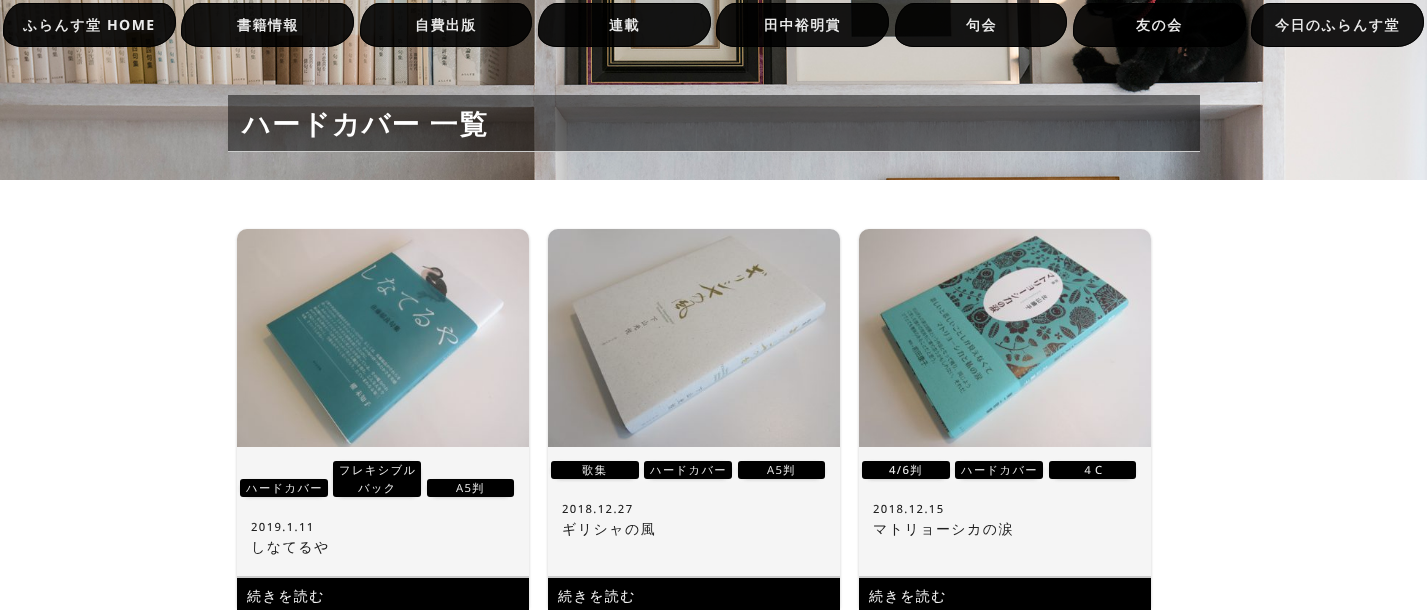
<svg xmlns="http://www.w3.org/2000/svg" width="1427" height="610">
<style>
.a{font:bold 14px WenQuanYi Zen Hei;letter-spacing:1.4px;fill:#ebebeb}
.b{font:bold 14px Open Sans;letter-spacing:1.4px;fill:#ebebeb}
.c{font:bold 28px WenQuanYi Zen Hei;letter-spacing:1.4px;fill:#fff}
.d{font:500 11.25px WenQuanYi Zen Hei;letter-spacing:1.4px;fill:#ebebeb}
.e{font:11.25px Open Sans;letter-spacing:1.4px;fill:#ebebeb}
.f{font:500 11.25px Open Sans;letter-spacing:1.4px;fill:#202020}
.g{font:500 14px WenQuanYi Zen Hei;letter-spacing:1.4px;fill:#202020}
.h{font:500 14px WenQuanYi Zen Hei;letter-spacing:1.4px;fill:#f5f5f5}
.i{font:500 11.25px Open Sans;letter-spacing:1.4px;fill:#ebebeb}
</style>
<rect width="100%" height="100%" fill="#fff"/>
<image href="1.png" x="0" y="0" width="1427" height="180"/>
<path fill="#000000e6" d="M22 3h140c8 0 14 9 14 19c0 14-12 25-28 25h-126c-10 0-19-6-19-14v-2c0-16 9-28 19-28z"/>
<path fill="none" stroke="#000000e6" d="M22 3.5h140c7.5 0 13.5 8.5 13.5 18.5c0 13.5-12 24.5-27 24.5h-126.5c-10 0-18.5-6-18.5-13.5v-2.5c0-15 8.5-27 18.5-27z"/>
<path fill="#000000e6" d="M200 3h140c8 0 14 9 14 19c0 14-12 25-28 25h-126c-10 0-19-6-19-14v-2c0-16 9-28 19-28z"/>
<path fill="none" stroke="#000000e6" d="M200 3.5h140c7.5 0 13.5 8.5 13.5 18.5c0 13.5-12 24.5-27 24.5h-126.5c-10 0-18.5-6-18.5-13.5v-2.5c0-15 8.5-27 18.5-27z"/>
<path fill="#000000e6" d="M379 3h139c8 0 14 9 14 19c0 14-12 25-28 25h-125c-10 0-19-6-19-14v-2c0-16 9-28 19-28z"/>
<path fill="none" stroke="#000000e6" d="M379 3.5h139c7.5 0 13.5 8.5 13.5 18.5c0 13.5-12 24.5-27 24.5h-125.5c-10 0-18.5-6-18.5-13.5v-2.5c0-15 8.5-27 18.5-27z"/>
<path fill="#000000e6" d="M557 3h140c8 0 14 9 14 19c0 14-12 25-27 25h-127c-10 0-19-6-19-14v-2c0-16 9-28 19-28z"/>
<path fill="none" stroke="#000000e6" d="M557 3.5h140c7.5 0 13.5 8.5 13.5 18.5c0 13.5-12 24.5-27 24.5h-126.5c-10 0-18.5-6-18.5-13.5v-2.5c0-15 8.5-27 18.5-27z"/>
<path fill="#000000e6" d="M735 3h140c8 0 14 9 14 19c0 14-12 25-27 25h-127c-10 0-19-6-19-14v-2c0-16 9-28 19-28z"/>
<path fill="none" stroke="#000000e6" d="M735 3.5h140c7.5 0 13.5 8.5 13.5 18.5c0 13.5-12 24.5-27 24.5h-126.5c-10 0-18.5-6-18.5-13.5v-2.5c0-15 8.5-27 18.5-27z"/>
<path fill="#000000e6" d="M914 3h139c8 0 14 9 14 19c0 14-12 25-27 25h-126c-10 0-19-6-19-14v-2c0-16 9-28 19-28z"/>
<path fill="none" stroke="#000000e6" d="M914 3.5h139c7.5 0 13.5 8.5 13.5 18.5c0 13.5-12 24.5-27 24.5h-125.5c-10 0-18.5-6-18.5-13.5v-2.5c0-15 8.5-27 18.5-27z"/>
<path fill="#000000e6" d="M1092 3h140c8 0 14 9 14 19c0 14-12 25-28 25h-126c-10 0-19-6-19-14v-2c0-16 9-28 19-28z"/>
<path fill="none" stroke="#000000e6" d="M1092 3.5h140c7.5 0 13.5 8.5 13.5 18.5c0 13.5-12 24.5-27 24.5h-126.5c-10 0-18.5-6-18.5-13.5v-2.5c0-15 8.5-27 18.5-27z"/>
<path fill="#000000e6" d="M1270 3h140c8 0 14 9 14 19c0 14-12 25-28 25h-126c-10 0-19-6-19-14v-2c0-16 9-28 19-28z"/>
<path fill="none" stroke="#000000e6" d="M1270 3.5h140c7.5 0 13.5 8.5 13.5 18.5c0 13.5-12 24.5-27 24.5h-126.5c-10 0-18.5-6-18.5-13.5v-2.5c0-15 8.5-27 18.5-27z"/>
<path fill="#00000080" d="M228 95h972v56H228z"/>
<path fill="#ccc" d="M228 151h972v1H228z"/>
<rect fill="#ccc" filter="blur(1.5px)" x="237" y="230" width="292" height="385" rx="10"/>
<path fill="#f5f5f5" d="M247 229h272c5.5 0 10 4.5 10 10v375h-292v-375c0-5.5 4.5-10 10-10z"/>
<image href="2.png" x="237" y="229" width="292" height="218"/>
<rect fill="#ccc" filter="blur(1.5px)" x="240" y="480" width="88" height="18" rx="10"/>
<path fill="#f5f5f5" d="M250 479h68c5.5 0 10 4.5 10 10v8h-88v-8c0-5.5 4.5-10 10-10z"/>
<rect fill="#000" x="240" y="479" width="88" height="18" rx="3"/>
<rect fill="#ccc" filter="blur(1.5px)" x="333" y="462" width="88" height="36" rx="10"/>
<path fill="#f5f5f5" d="M343 461h68c5.5 0 10 4.5 10 10v26h-88v-26c0-5.5 4.5-10 10-10z"/>
<rect fill="#000" x="333" y="461" width="88" height="36" rx="3"/>
<rect fill="#ccc" filter="blur(1.5px)" x="427" y="480" width="87" height="18" rx="10"/>
<path fill="#f5f5f5" d="M437 479h67c5.5 0 10 4.5 10 10v8h-87v-8c0-5.5 4.5-10 10-10z"/>
<rect fill="#000" x="427" y="479" width="87" height="18" rx="3"/>
<path fill="#ccc" filter="blur(0.5px)" d="M237 576h292v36H237z"/>
<path fill="#000" d="M237 578h292v32H237z"/>
<rect fill="#ccc" filter="blur(1.5px)" x="548" y="230" width="292" height="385" rx="10"/>
<path fill="#f5f5f5" d="M558 229h272c5.5 0 10 4.5 10 10v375h-292v-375c0-5.5 4.5-10 10-10z"/>
<image href="3.png" x="548" y="229" width="292" height="218"/>
<rect fill="#ccc" filter="blur(1.5px)" x="551" y="462" width="88" height="18" rx="10"/>
<path fill="#f5f5f5" d="M561 461h68c5.5 0 10 4.5 10 10v8h-88v-8c0-5.5 4.5-10 10-10z"/>
<rect fill="#000" x="551" y="461" width="88" height="18" rx="3"/>
<rect fill="#ccc" filter="blur(1.5px)" x="644" y="462" width="88" height="18" rx="10"/>
<path fill="#f5f5f5" d="M654 461h68c5.5 0 10 4.5 10 10v8h-88v-8c0-5.5 4.5-10 10-10z"/>
<rect fill="#000" x="644" y="461" width="88" height="18" rx="3"/>
<rect fill="#ccc" filter="blur(1.5px)" x="738" y="462" width="87" height="18" rx="10"/>
<path fill="#f5f5f5" d="M748 461h67c5.5 0 10 4.5 10 10v8h-87v-8c0-5.5 4.5-10 10-10z"/>
<rect fill="#000" x="738" y="461" width="87" height="18" rx="3"/>
<path fill="#ccc" filter="blur(0.5px)" d="M548 576h292v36H548z"/>
<path fill="#000" d="M548 578h292v32H548z"/>
<rect fill="#ccc" filter="blur(1.5px)" x="859" y="230" width="292" height="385" rx="10"/>
<path fill="#f5f5f5" d="M869 229h272c5.5 0 10 4.5 10 10v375h-292v-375c0-5.5 4.5-10 10-10z"/>
<image href="4.png" x="859" y="229" width="292" height="218"/>
<rect fill="#ccc" filter="blur(1.5px)" x="862" y="462" width="88" height="18" rx="10"/>
<path fill="#f5f5f5" d="M872 461h68c5.5 0 10 4.5 10 10v8h-88v-8c0-5.5 4.5-10 10-10z"/>
<rect fill="#000" x="862" y="461" width="88" height="18" rx="3"/>
<rect fill="#ccc" filter="blur(1.5px)" x="955" y="462" width="88" height="18" rx="10"/>
<path fill="#f5f5f5" d="M965 461h68c5.5 0 10 4.5 10 10v8h-88v-8c0-5.5 4.5-10 10-10z"/>
<rect fill="#000" x="955" y="461" width="88" height="18" rx="3"/>
<rect fill="#ccc" filter="blur(1.5px)" x="1049" y="462" width="87" height="18" rx="10"/>
<path fill="#f5f5f5" d="M1059 461h67c5.5 0 10 4.5 10 10v8h-87v-8c0-5.5 4.5-10 10-10z"/>
<rect fill="#000" x="1049" y="461" width="87" height="18" rx="3"/>
<path fill="#ccc" filter="blur(0.5px)" d="M859 576h292v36H859z"/>
<path fill="#000" d="M859 578h292v32H859z"/>
<text class="a" x="23" y="30">ふらんす堂</text>
<text class="b" x="107" y="30">HOME</text>
<text class="a" x="237" y="30">書籍情報</text>
<text class="a" x="415" y="30">自費出版</text>
<text class="a" x="609" y="30">連載</text>
<text class="a" x="764" y="30">田中裕明賞</text>
<text class="a" x="966" y="30">句会</text>
<text class="a" x="1136" y="30">友の会</text>
<text class="a" x="1275" y="30">今日のふらんす堂</text>
<text class="c" x="242" y="134" word-spacing="-1">ハードカバー 一覧</text>
<text class="d" x="246" y="492">ハードカバー</text>
<text class="d" x="339" y="474">フレキシブル</text>
<text class="d" x="358" y="492">バック</text>
<text class="e" x="456" y="492">A5</text>
<text class="d" x="472" y="492">判</text>
<text class="f" x="251" y="531">2019.1.11</text>
<text class="g" x="251" y="552">しなてるや</text>
<text class="h" x="247" y="601">続きを読む</text>
<text class="d" x="582" y="474">歌集</text>
<text class="d" x="650" y="474">ハードカバー</text>
<text class="e" x="767" y="474">A5</text>
<text class="d" x="783" y="474">判</text>
<text class="f" x="562" y="513">2018.12.27</text>
<text class="g" x="562" y="534">ギリシャの風</text>
<text class="h" x="558" y="601">続きを読む</text>
<text class="i" x="889" y="474">4/6</text>
<text class="d" x="910" y="474">判</text>
<text class="d" x="961" y="474">ハードカバー</text>
<text class="d" x="1082" y="474">４</text>
<text class="i" x="1095" y="474">C</text>
<text class="f" x="873" y="513">2018.12.15</text>
<text class="g" x="873" y="534">マトリョーシカの涙</text>
<text class="h" x="869" y="601">続きを読む</text>
</svg>
